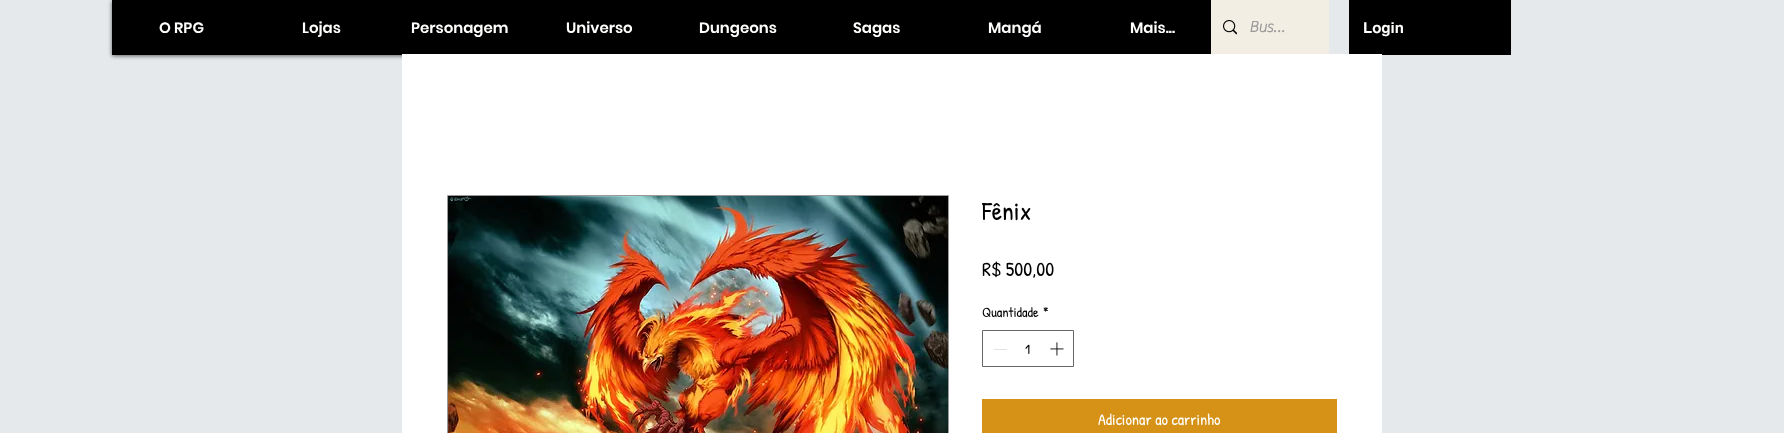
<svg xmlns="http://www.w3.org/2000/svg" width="1784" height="433">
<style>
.a{font:600 15px Poppins;fill:#fffffe}
.b{font:bold 16px 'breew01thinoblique';fill:#999}
.c{font:bold 15px helvetica;fill:#fffffe}
.d{font:26px Patrick Hand;fill:#000}
.e{font:20px Patrick Hand;fill:#000}
.f{font:14px Patrick Hand;fill:#000}
.g{font:16px Patrick Hand;fill:#fffffe}
</style>
<rect width="100%" height="100%" fill="#e6e9eb"/>
<path fill="#00000099" filter="blur(2px)" d="M112 1h1109v55H112z"/>
<path fill="#000" d="M112 0h1099v55H112z"/>
<path fill="#f2eee4" d="M1211 0h118v54H1211z"/>
<image href="1.png" x="1223" y="20" width="14" height="15"/>
<path fill="#000" d="M1349 0h162v55H1349z"/>
<path fill="#fff" d="M402 54h980v379H402z"/>
<path fill="none" stroke="#999" d="M447.5 195.5h501v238H447.5z"/>
<image href="2.png" x="448" y="196" width="500" height="237"/>
<path fill="none" stroke="#666" d="M982.5 330.5h91v36H982.5z"/>
<path fill="#e3e3e3" d="M994 349h13v1H994z"/>
<image href="3.png" x="1050" y="342" width="14" height="14"/>
<path fill="#d59216" d="M982 399h355v34H982z"/>
<text class="a" x="159" y="33">O RPG</text>
<text class="a" x="302" y="33">Lojas</text>
<text class="a" x="411" y="33">Personagem</text>
<text class="a" x="566" y="33">Universo</text>
<text class="a" x="699" y="33">Dungeons</text>
<text class="a" x="853" y="33">Sagas</text>
<text class="a" x="988" y="33">Mangá</text>
<text class="a" x="1130" y="33">Mais...</text>
<text class="b" x="1249" y="32">Bus…</text>
<text class="c" x="1363" y="33">Login</text>
<text class="d" x="982" y="220">Fênix</text>
<text class="e" x="982" y="276">R$ 500,00</text>
<text class="f" x="982" y="317">Quantidade</text>
<text class="f" x="1043" y="317">*</text>
<text class="f" x="1025" y="354">1</text>
<text class="g" x="1098" y="425">Adicionar ao carrinho</text>
</svg>
